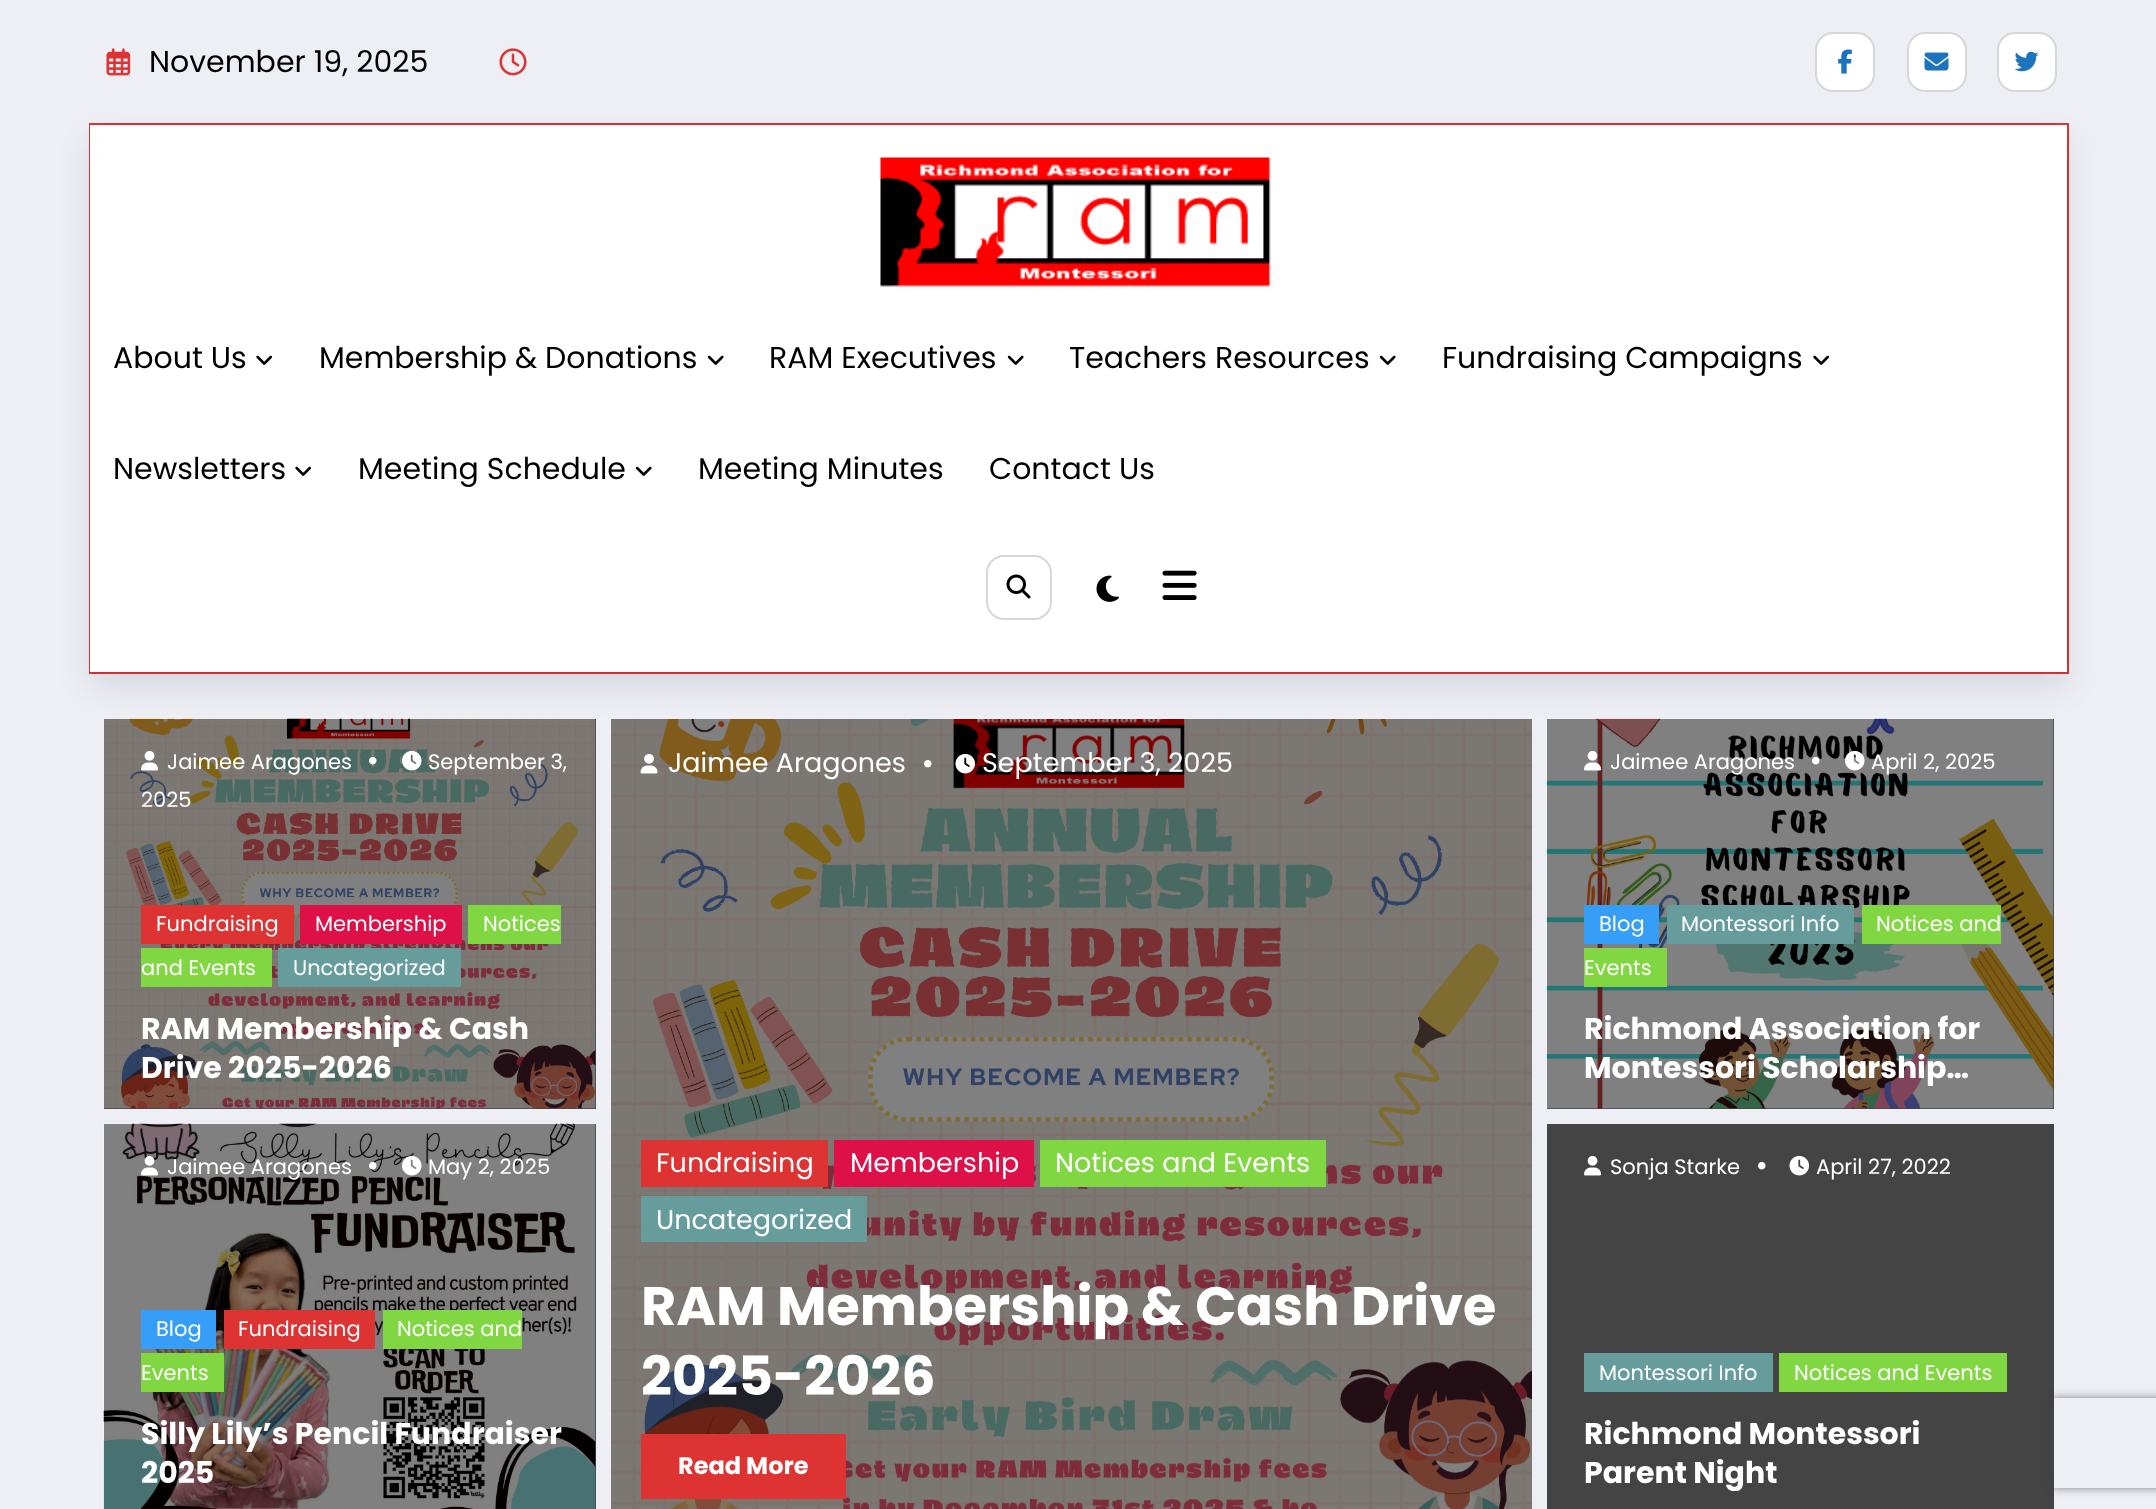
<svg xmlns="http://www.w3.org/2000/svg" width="2156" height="1509">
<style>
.a{font:30px Poppins;fill:#000}
.b{font:21px Poppins;fill:#fff}
.c{font:bold 30px Poppins;fill:#fff}
.d{font:27px Poppins;fill:#fff}
.e{font:bold 54px Poppins;fill:#fff}
.f{font:bold 24px Poppins;fill:#fff}
</style>
<defs>
<clipPath id="clip1"><path d="M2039 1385h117v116h-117zm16 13h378c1.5 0 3 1.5 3 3v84c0 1.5-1.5 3-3 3h-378c-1.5 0-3-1.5-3-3v-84c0-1.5 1.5-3 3-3z" clip-rule="evenodd"/></clipPath>
<clipPath id="clip2"><path d="M1584 1413h440v78H1584z"/></clipPath>
</defs>
<rect width="100%" height="100%" fill="#eeeef5"/>
<image href="1.png" x="106" y="48" width="25" height="28"/>
<image href="2.png" x="499" y="48" width="28" height="28"/>
<rect fill="#fff" stroke="#d7d7d7" stroke-width="2" x="1816" y="33" width="58" height="58" rx="17"/>
<image href="3.png" x="1838" y="49" width="14" height="25"/>
<rect fill="#fff" stroke="#d7d7d7" stroke-width="2" x="1908" y="33" width="58" height="58" rx="17"/>
<image href="4.png" x="1924" y="52" width="25" height="19"/>
<rect fill="#fff" stroke="#d7d7d7" stroke-width="2" x="1998" y="33" width="58" height="58" rx="17"/>
<image href="5.png" x="2014" y="51" width="25" height="21"/>
<path fill="#d33" d="M89 123h1980v551H89z"/>
<path fill="#444" d="M104 719h492v390H104z"/>
<image href="12.png" x="103" y="718" width="493" height="391"/>
<image href="20.png" x="611" y="719" width="921" height="790"/>
<path fill="#444" d="M1547 719h507v390H1547z"/>
<image href="24.png" x="1546" y="718" width="508" height="391"/>
<path fill="#1412231a" filter="blur(15px)" d="M90 140h1977v547H90z"/>
<path fill="#fff" d="M90 125h1977v547H90z"/>
<image href="6.png" x="880" y="157" width="391" height="130"/>
<image href="7.png" x="256" y="355" width="16" height="10"/>
<image href="8.png" x="707" y="355" width="17" height="10"/>
<image href="8.png" x="1007" y="355" width="17" height="10"/>
<image href="8.png" x="1379" y="355" width="17" height="10"/>
<image href="7.png" x="1813" y="355" width="16" height="10"/>
<image href="7.png" x="295" y="466" width="16" height="10"/>
<image href="8.png" x="635" y="466" width="17" height="10"/>
<rect fill="none" stroke="#d7d7d7" stroke-width="2" x="987" y="556" width="64" height="63" rx="17"/>
<image href="9.png" x="1006" y="574" width="25" height="25"/>
<image href="10.png" x="1096" y="575" width="23" height="27"/>
<image href="11.png" x="1162" y="570" width="35" height="30"/>
<image href="13.png" x="402" y="750" width="20" height="21"/>
<image href="14.png" x="141" y="750" width="18" height="21"/>
<image href="15.png" x="369" y="756" width="8" height="9"/>
<path fill="#d33" d="M141 905h153v39H141z"/>
<path fill="#dd1148" d="M300 905h162v39H300z"/>
<path fill="#81d742" d="M468 905h93v39H468z"/>
<path fill="#81d742" d="M141 948h131v39H141z"/>
<path fill="#669c9b" d="M278 948h183v39H278z"/>
<path fill="#444" d="M595 1124h1v385H595z"/>
<image href="16.png" x="103" y="1123" width="493" height="386"/>
<image href="17.png" x="141" y="1155" width="17" height="21"/>
<image href="18.png" x="369" y="1161" width="8" height="9"/>
<image href="19.png" x="402" y="1155" width="20" height="21"/>
<path fill="#369ef7" d="M141 1310h75v39H141z"/>
<path fill="#d33" d="M224 1310h151v39H224z"/>
<path fill="#81d742" d="M383 1310h139v39H383z"/>
<path fill="#81d742" d="M141 1353h83v39H141z"/>
<image href="21.png" x="640" y="754" width="18" height="20"/>
<image href="22.png" x="924" y="759" width="8" height="9"/>
<image href="23.png" x="955" y="753" width="20" height="21"/>
<path fill="#d33" d="M641 1140h187v47H641z"/>
<path fill="#dd1148" d="M834 1140h200v47H834z"/>
<path fill="#81d742" d="M1040 1140h286v47H1040z"/>
<path fill="#669c9b" d="M641 1196h226v46H641z"/>
<path fill="#d33" d="M641 1434h205v65H641z"/>
<image href="25.png" x="1584" y="750" width="18" height="21"/>
<image href="26.png" x="1812" y="757" width="8" height="8"/>
<image href="27.png" x="1845" y="750" width="20" height="21"/>
<path fill="#369ef7" d="M1584 905h75v39H1584z"/>
<path fill="#669c9b" d="M1667 905h187v39H1667z"/>
<path fill="#81d742" d="M1862 905h139v39H1862z"/>
<path fill="#81d742" d="M1584 948h83v39H1584z"/>
<path fill="#888" d="M1547 1124h507v385H1547z"/>
<g clip-path="url(#clip1)">
<rect fill="#808080" filter="blur(4px)" x="2052" y="1398" width="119" height="90" rx="3"/>
</g>
<path fill="#00000080" d="M1547 1124h507v385H1547z"/>
<image href="28.png" x="1584" y="1155" width="18" height="21"/>
<image href="29.png" x="1758" y="1161" width="8" height="9"/>
<image href="30.png" x="1789" y="1155" width="20" height="21"/>
<path fill="#669c9b" d="M1584 1353h189v39H1584z"/>
<path fill="#81d742" d="M1779 1353h228v39H1779z"/>
<text class="a" x="149" y="72">November 19, 2025</text>
<text class="a" x="113" y="368">About Us</text>
<text class="a" x="319" y="368">Membership &amp; Donations</text>
<text class="a" x="769" y="368">RAM Executives</text>
<text class="a" x="1069" y="368">Teachers Resources</text>
<text class="a" x="1442" y="368">Fundraising Campaigns</text>
<text class="a" x="113" y="479">Newsletters</text>
<text class="a" x="358" y="479">Meeting Schedule</text>
<text class="a" x="698" y="479">Meeting Minutes</text>
<text class="a" x="989" y="479">Contact Us</text>
<text class="b" x="428" y="769">September 3,</text>
<text class="b" x="141" y="807">2025</text>
<text class="b" x="167" y="769">Jaimee Aragones</text>
<text class="b" x="156" y="931">Fundraising</text>
<text class="b" x="315" y="931">Membership</text>
<text class="b" x="483" y="931">Notices</text>
<text class="b" x="141" y="975">and Events</text>
<text class="b" x="293" y="975">Uncategorized</text>
<text class="c" x="141" y="1039">RAM Membership &amp; Cash</text>
<text class="c" x="141" y="1078">Drive 2025-2026</text>
<text class="b" x="167" y="1174">Jaimee Aragones</text>
<text class="b" x="428" y="1174">May 2, 2025</text>
<text class="b" x="156" y="1336">Blog</text>
<text class="b" x="238" y="1336">Fundraising</text>
<text class="b" x="397" y="1336">Notices and</text>
<text class="b" x="141" y="1380">Events</text>
<text class="c" x="141" y="1444">Silly Lily’s Pencil Fundraiser</text>
<text class="c" x="141" y="1483">2025</text>
<text class="d" x="668" y="772">Jaimee Aragones</text>
<text class="d" x="982" y="772">September 3, 2025</text>
<text class="d" x="656" y="1172">Fundraising</text>
<text class="d" x="850" y="1172">Membership</text>
<text class="d" x="1055" y="1172">Notices and Events</text>
<text class="d" x="656" y="1229">Uncategorized</text>
<text class="e" x="641" y="1325">RAM Membership &amp; Cash Drive</text>
<text class="e" x="641" y="1395">2025-2026</text>
<text class="f" x="678" y="1474">Read More</text>
<text class="b" x="1610" y="769">Jaimee Aragones</text>
<text class="b" x="1871" y="769">April 2, 2025</text>
<text class="b" x="1599" y="931">Blog</text>
<text class="b" x="1681" y="931">Montessori Info</text>
<text class="b" x="1876" y="931">Notices and</text>
<text class="b" x="1584" y="975">Events</text>
<text class="c" x="1584" y="1039">Richmond Association for</text>
<text class="c" x="1584" y="1078">Montessori Scholarship…</text>
<text class="b" x="1610" y="1174">Sonja Starke</text>
<text class="b" x="1816" y="1174">April 27, 2022</text>
<text class="b" x="1599" y="1380">Montessori Info</text>
<text class="b" x="1794" y="1380">Notices and Events</text>
<text class="c" x="1584" y="1444">Richmond Montessori</text>
<g clip-path="url(#clip2)">
<text class="c" x="1584" y="1483">Parent Night</text>
</g>
</svg>
